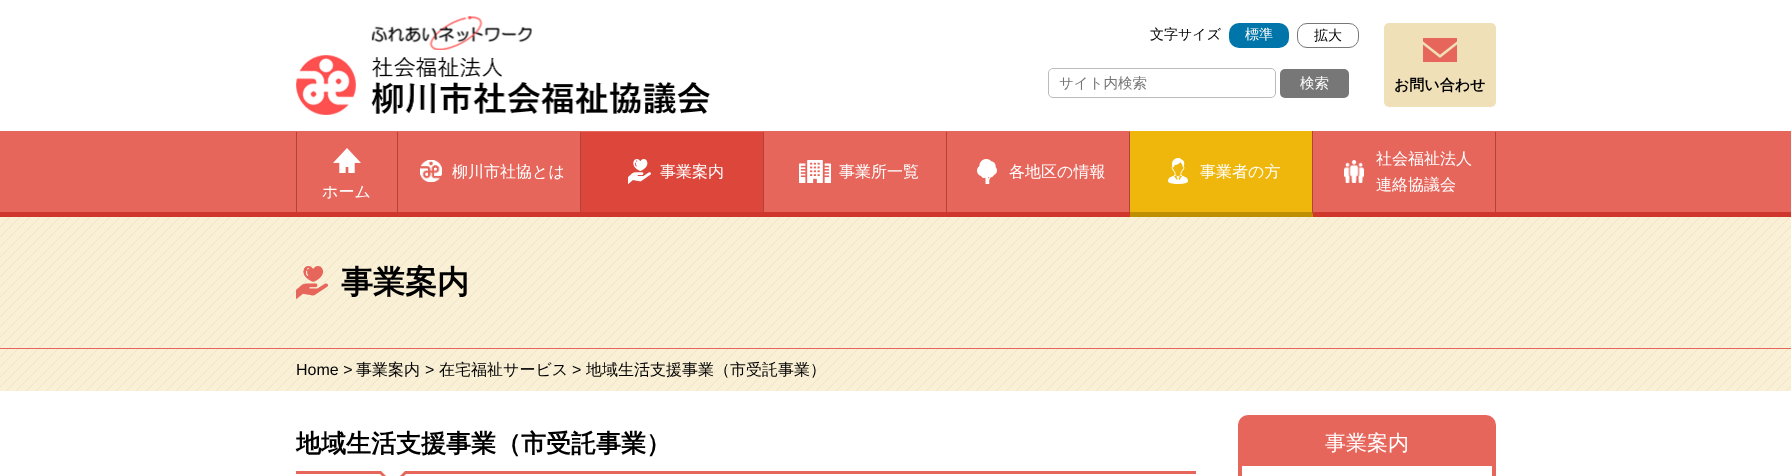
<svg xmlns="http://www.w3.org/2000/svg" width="1791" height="476">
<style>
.a{font:500 14px WenQuanYi Zen Hei;fill:#000}
.b{font:500 14px WenQuanYi Zen Hei;fill:#fff}
.c{font:500 14.5px WenQuanYi Zen Hei;fill:#757575}
.d{font:500 14.5px WenQuanYi Zen Hei;fill:#fff}
.e{font:bold 15px WenQuanYi Zen Hei;fill:#000}
.f{font:500 16px WenQuanYi Zen Hei;fill:#fff}
.g{font:bold 32px WenQuanYi Zen Hei;fill:#000}
.h{font:16px Liberation Sans;fill:#000}
.i{font:500 16px WenQuanYi Zen Hei;fill:#000}
.j{font:bold 25px WenQuanYi Zen Hei;fill:#000}
.k{font:500 21px WenQuanYi Zen Hei;fill:#fff}
</style>
<rect width="100%" height="100%" fill="#fff"/>
<image href="1.png" x="296" y="16" width="414" height="99"/>
<rect fill="#0075a9" x="1229" y="23" width="60" height="25" rx="10"/>
<rect fill="none" stroke="#777" x="1297.5" y="23.5" width="61" height="24" rx="9.5"/>
<rect fill="none" stroke="#bbb" x="1048.5" y="68.5" width="227" height="29" rx="4.5"/>
<rect fill="#777" x="1280" y="69" width="69" height="29" rx="5"/>
<rect fill="#efe0b8" x="1384" y="23" width="112" height="84" rx="5"/>
<image href="2.png" x="1423" y="38" width="34" height="24"/>
<path fill="#e7665c" d="M0 131h1791v81H0z"/>
<path fill="#d0372c" d="M0 212h1791v5H0z"/>
<path fill="#b2433a" d="M580 132h1v80H580z"/>
<image href="3.png" x="420" y="160" width="22" height="22"/>
<path fill="#b2433a" d="M763 132h1v80H763z"/>
<path fill="#dc463b" d="M581 132h182v80H581z"/>
<image href="4.png" x="628" y="159" width="23" height="25"/>
<path fill="#b2433a" d="M946 132h1v80H946z"/>
<image href="5.png" x="799" y="160" width="32" height="23"/>
<path fill="#b2433a" d="M1129 132h1v80H1129z"/>
<image href="6.png" x="977" y="159" width="20" height="25"/>
<path fill="#efb70c" d="M1130 131h183v86H1130z"/>
<path fill="#b2433a" d="M1313 131v86l-1-5v-81z"/>
<path fill="#be8f00" d="M1313 217h-183v-5h182z"/>
<image href="7.png" x="1168" y="158" width="20" height="26"/>
<path fill="#b2433a" d="M1495 132h1v80H1495z"/>
<image href="8.png" x="1344" y="160" width="20" height="23"/>
<path fill="#b2433a" d="M397 132h1v80H397z"/>
<path fill="#b2433a" d="M296 132h1v80H296z"/>
<image href="9.png" x="333" y="148" width="28" height="25"/>
<path fill="#faf0d5" d="M0 217h1791v174H0z"/>
<image href="10.png" x="0" y="217" width="1791" height="174"/>
<image href="11.png" x="296" y="266" width="32" height="33"/>
<path fill="#e7665c" d="M0 348h1791v1H0z"/>
<path fill="#e7665c" d="M296 471h900v3H296z"/>
<path fill="#e7665c" d="M379 473h28l-14 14z"/>
<path fill="#fff" d="M381 471h24l-12 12z"/>
<rect fill="none" stroke="#e7665c" stroke-width="4" x="1240" y="417" width="254" height="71" rx="8"/>
<path fill="#e7665c" d="M1242 419h250v47H1242z"/>
<text class="a" x="1150" y="39">文字サイズ</text>
<text class="b" x="1245" y="39">標準</text>
<text class="a" x="1314" y="40">拡大</text>
<text class="c" x="1059" y="88">サイト内検索</text>
<text class="d" x="1300" y="88">検索</text>
<text class="e" x="1394" y="90">お問い合わせ</text>
<text class="f" x="452" y="177">柳川市社協とは</text>
<text class="f" x="660" y="177">事業案内</text>
<text class="f" x="839" y="177">事業所一覧</text>
<text class="f" x="1009" y="177">各地区の情報</text>
<text class="f" x="1200" y="177">事業者の方</text>
<text class="f" x="1376" y="164">社会福祉法人</text>
<text class="f" x="1376" y="190">連絡協議会</text>
<text class="f" x="322" y="197">ホーム</text>
<text class="g" x="341" y="293">事業案内</text>
<text class="h" x="296" y="375">Home &gt;</text>
<text class="i" x="356" y="375">事業案内</text>
<text class="h" x="425" y="375">&gt;</text>
<text class="i" x="439" y="375">在宅福祉サービス</text>
<text class="h" x="572" y="375">&gt;</text>
<text class="i" x="586" y="375">地域生活支援事業（市受託事業）</text>
<text class="j" x="296" y="452">地域生活支援事業（市受託事業）</text>
<text class="k" x="1325" y="450">事業案内</text>
</svg>
